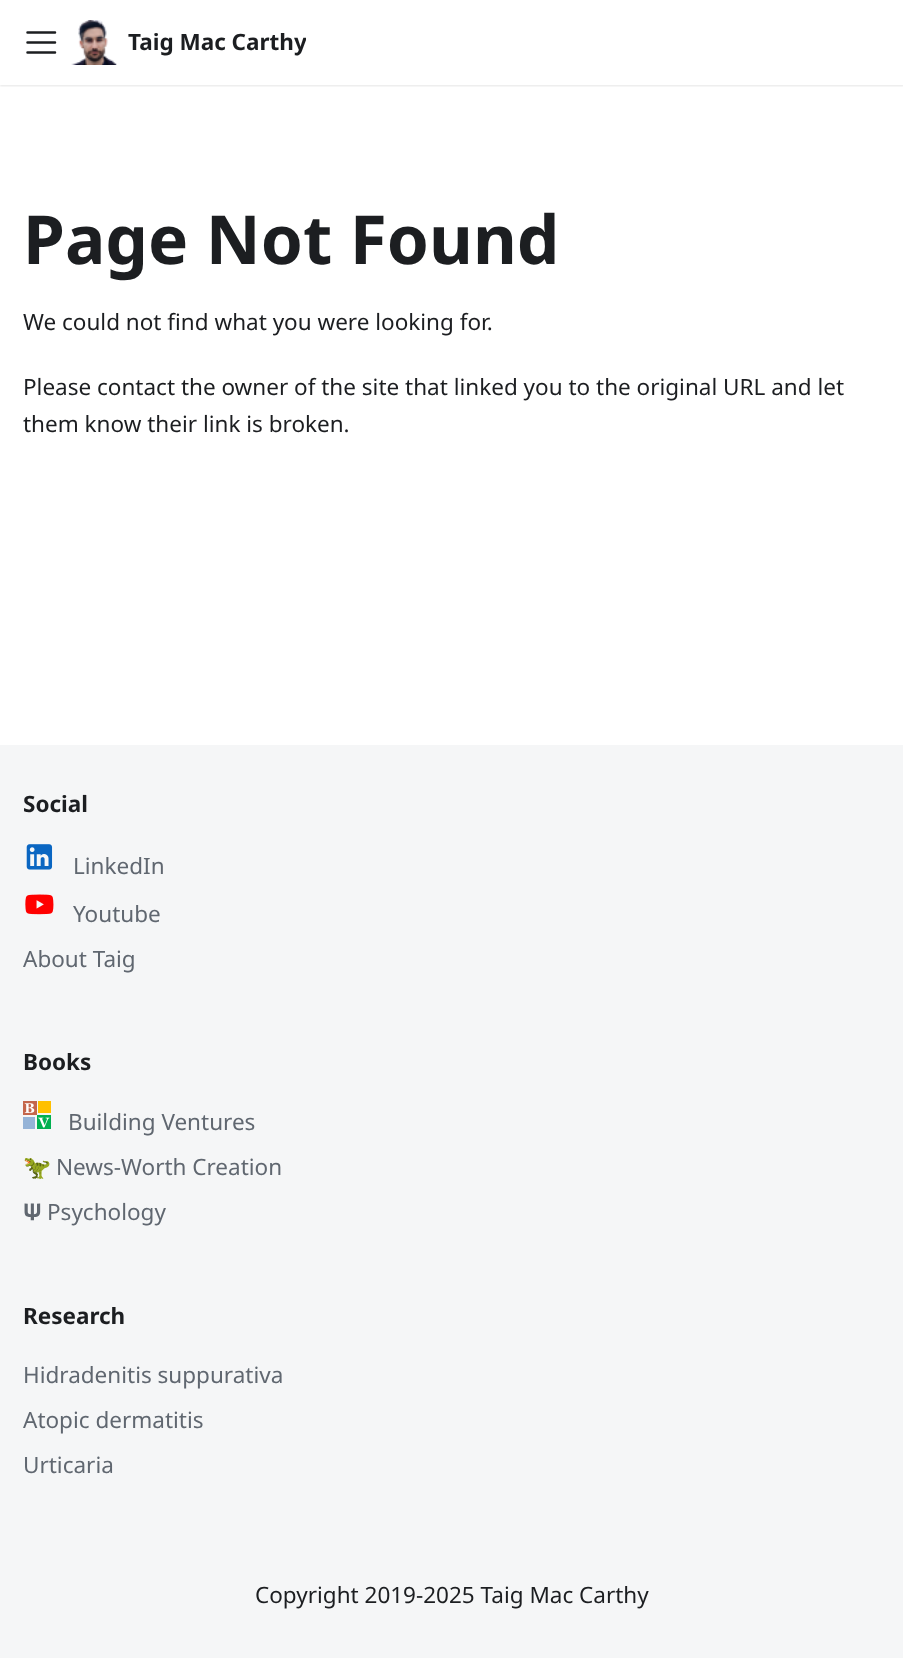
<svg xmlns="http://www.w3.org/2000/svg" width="903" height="1658">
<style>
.a{font:bold 22.5px Noto Sans;fill:#1c1e21}
.b{font:bold 67.5px Noto Sans;fill:#1c1e21}
.c{font:22.5px Noto Sans;fill:#1c1e21}
.d{font:22.5px Noto Sans;fill:#606770}
.e{font:22.5px Noto Color Emoji;fill:#606770}
.f{font:22.5px FreeSans;fill:#606770}
</style>
<defs>
<clipPath id="clip1"><path d="M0 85h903v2H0z"/></clipPath>
<clipPath id="clip2"><path d="M128 24h178v37H128z"/></clipPath>
</defs>
<rect width="100%" height="100%" fill="#fff"/>
<g clip-path="url(#clip1)">
<path fill="#0000001a" filter="blur(1px)" d="M0 1h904v85H0z"/>
</g>
<path fill="none" stroke="#1c1e21" stroke-width="2.5" stroke-linecap="round" d="M27.5 32.5h27.5m-27.5 10h27.5m-27.5 10h27.5"/>
<image href="1.png" x="71" y="20" width="46" height="45"/>
<path fill="#f5f6f7" d="M0 745h903v913H0z"/>
<image href="2.png" x="26" y="844" width="27" height="26"/>
<image href="3.png" x="25" y="894" width="29" height="21"/>
<image href="4.png" x="23" y="1101" width="28" height="28"/>
<g clip-path="url(#clip2)">
<text class="a" x="128" y="50">Taig Mac Carthy</text>
</g>
<text class="b" x="23" y="264">Page Not Found</text>
<text class="c" x="23" y="330">We could not find what you were looking for.</text>
<text class="c" x="23" y="395">Please contact the owner of the site that linked you to the original URL and let</text>
<text class="c" x="23" y="432">them know their link is broken.</text>
<text class="a" x="23" y="812">Social</text>
<text class="d" x="73" y="874">LinkedIn</text>
<text class="d" x="73" y="922">Youtube</text>
<text class="d" x="23" y="967">About Taig</text>
<text class="a" x="23" y="1070">Books</text>
<text class="d" x="68" y="1130">Building Ventures</text>
<text class="e" x="23" y="1175">🦖</text>
<text class="d" x="56" y="1175">News-Worth Creation</text>
<text class="f" x="23" y="1220">𝚿</text>
<text class="d" x="47" y="1220">Psychology</text>
<text class="a" x="23" y="1324">Research</text>
<text class="d" x="23" y="1383">Hidradenitis suppurativa</text>
<text class="d" x="23" y="1428">Atopic dermatitis</text>
<text class="d" x="23" y="1473">Urticaria</text>
<text class="c" x="255" y="1603">Copyright 2019-2025 Taig Mac Carthy</text>
</svg>
